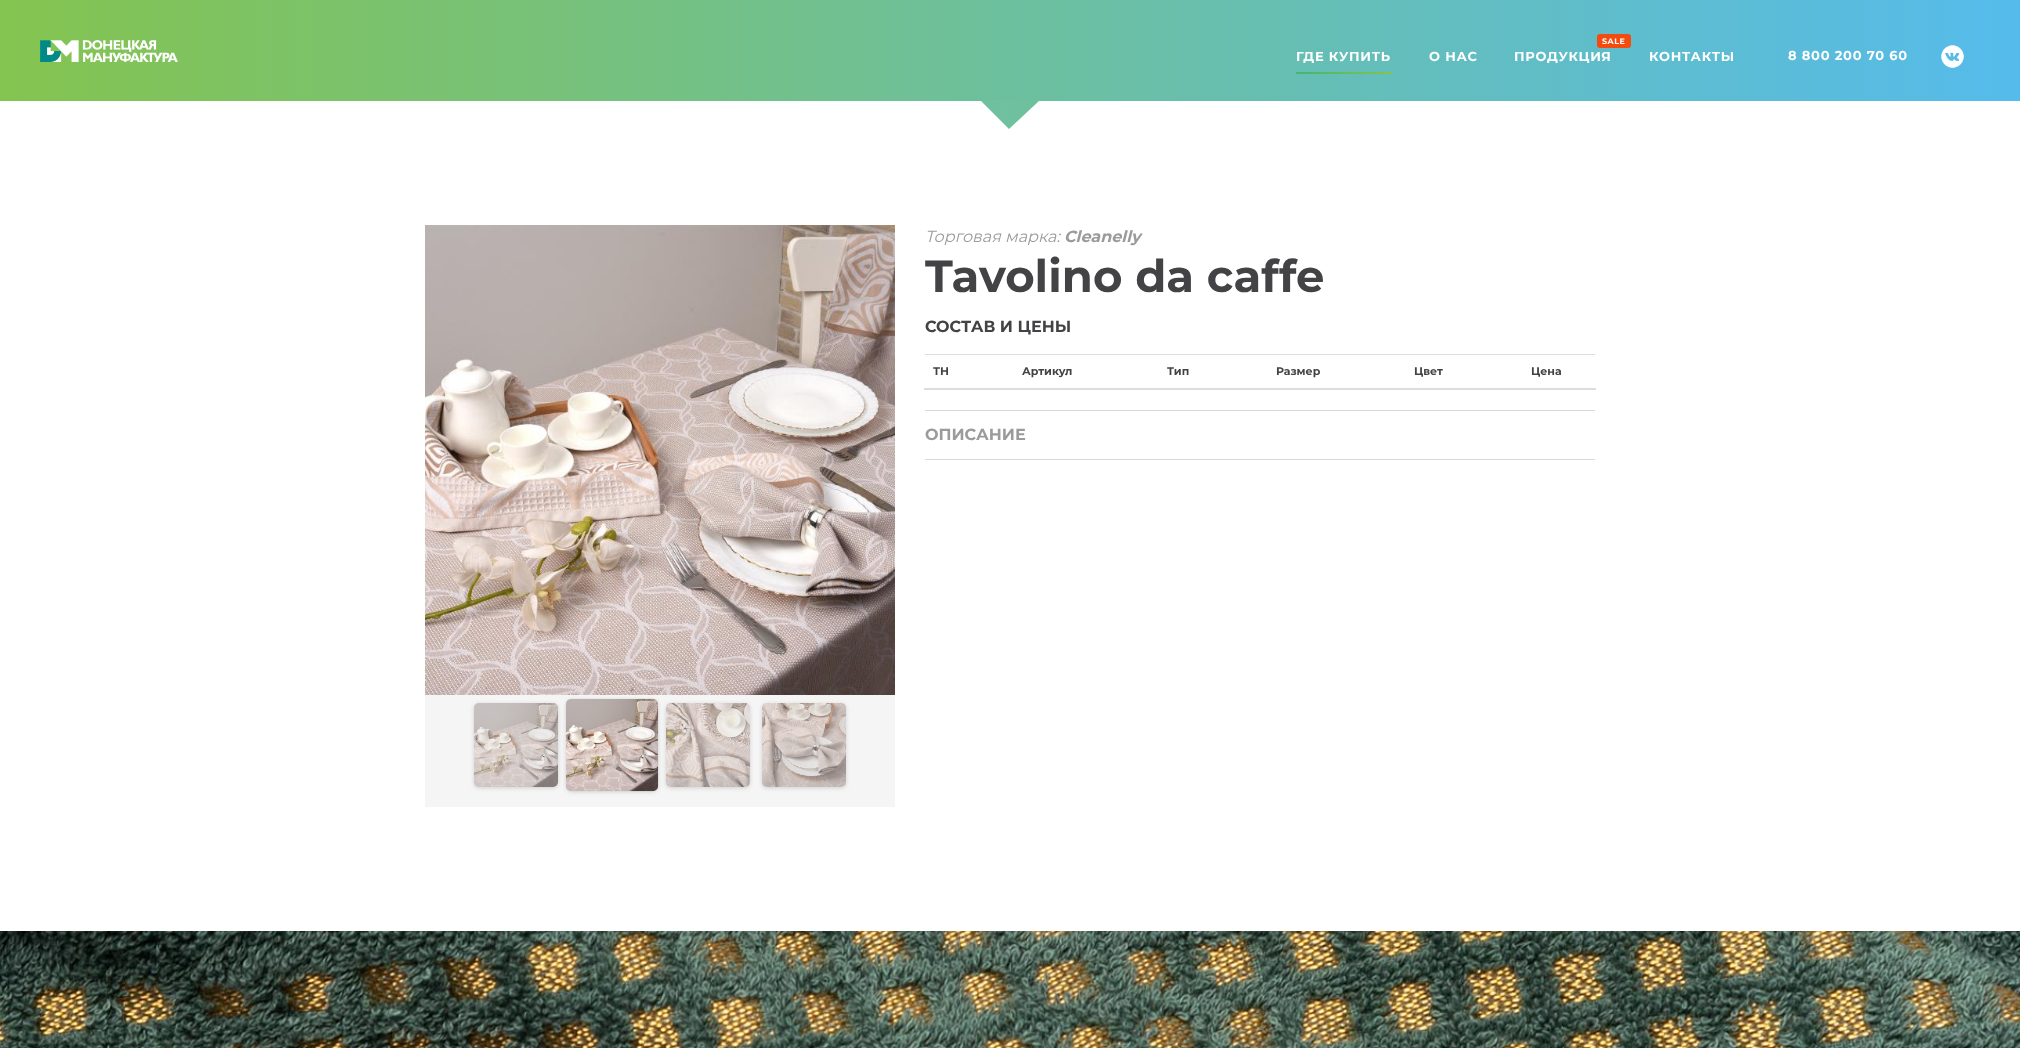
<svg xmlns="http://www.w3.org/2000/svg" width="2020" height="1048">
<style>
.a{font:bold 13px Montserrat;letter-spacing:0.75px;fill:#fff}
.b{font:bold 8px Montserrat;letter-spacing:0.5px;fill:#fff}
.c{font:italic 16px Montserrat;fill:#9b9b9b}
.d{font:italic bold 16px Montserrat;fill:#9b9b9b}
.e{font:bold 45px Montserrat;fill:#434345}
.f{font:bold 16px Montserrat;fill:#434345}
.g{font:bold 11px Montserrat;fill:#434345}
.h{font:bold 16px Montserrat;fill:#9b9b9b}
</style>
<defs>
<linearGradient id="g1" gradientUnits="userSpaceOnUse" x1="2020" y1="50" x2="0" y2="51"><stop offset="0" stop-color="#55bbeb"/><stop offset="1" stop-color="#84c450"/></linearGradient>
<linearGradient id="g2" gradientUnits="userSpaceOnUse" x1="980" y1="100" x2="1040" y2="100"><stop offset="0" stop-color="#6ec0a1"/><stop offset="1" stop-color="#6fc19c"/></linearGradient>
<linearGradient id="g3" gradientUnits="userSpaceOnUse" x1="1296" y1="73" x2="1392" y2="73"><stop offset="0" stop-color="#42b574"/><stop offset="1" stop-color="#84c450"/></linearGradient>
</defs>
<rect width="100%" height="100%" fill="#fff"/>
<path fill="url(#g1)" d="M0 0h2020v101H0z"/>
<path fill="url(#g2)" d="M980 100h60l-31 29"/>
<image href="1.png" x="40" y="40" width="138" height="22"/>
<path fill="url(#g3)" d="M1296 72h96v2H1296z"/>
<rect fill="#f54b0f" x="1597" y="34" width="34" height="14" rx="3"/>
<image href="2.png" x="1941" y="45" width="23" height="23"/>
<path fill="#f5f5f5" d="M425 695h470v112H425z"/>
<image href="3.png" x="425" y="225" width="470" height="470"/>
<rect fill="#00000026" filter="blur(2px)" x="474" y="704" width="84" height="84" rx="5"/>
<rect fill="#d9d9d9" x="474" y="703" width="84" height="84" rx="5"/>
<image href="4.png" x="474" y="703" width="84" height="84"/>
<rect fill="#00000026" filter="blur(2px)" x="566" y="700" width="92" height="92" rx="6"/>
<image href="5.png" x="565" y="698" width="94" height="94"/>
<rect fill="#00000026" filter="blur(2px)" x="666" y="704" width="84" height="84" rx="5"/>
<rect fill="#d9d9d9" x="666" y="703" width="84" height="84" rx="5"/>
<image href="6.png" x="666" y="703" width="84" height="84"/>
<rect fill="#00000026" filter="blur(2px)" x="762" y="704" width="84" height="84" rx="5"/>
<rect fill="#d9d9d9" x="762" y="703" width="84" height="84" rx="5"/>
<image href="7.png" x="762" y="703" width="84" height="84"/>
<path fill="#d9d9d9" d="M925 410h670v1H925z"/>
<path fill="#ddd" d="M925 354h670v1H925z"/>
<path fill="#ddd" d="M924 388h672v2H924z"/>
<path fill="#d9d9d9" d="M925 459h670v1H925z"/>
<image href="8.png" x="0" y="931" width="2020" height="117"/>
<text class="a" x="1296" y="61">ГДЕ КУПИТЬ</text>
<text class="a" x="1429" y="61">О НАС</text>
<text class="b" x="1602" y="44">SALE</text>
<text class="a" x="1514" y="61">ПРОДУКЦИЯ</text>
<text class="a" x="1649" y="61">КОНТАКТЫ</text>
<text class="a" x="1788" y="60">8 800 200 70 60</text>
<text class="c" x="925" y="242">Торговая марка:</text>
<text class="d" x="1064" y="242">Cleanelly</text>
<text class="e" x="925" y="292">Tavolino da caffe</text>
<text class="f" x="925" y="332">СОСТАВ И ЦЕНЫ</text>
<text class="g" x="933" y="375">ТН</text>
<text class="g" x="1022" y="375">Артикул</text>
<text class="g" x="1167" y="375">Тип</text>
<text class="g" x="1276" y="375">Размер</text>
<text class="g" x="1414" y="375">Цвет</text>
<text class="g" x="1531" y="375">Цена</text>
<text class="h" x="925" y="440">ОПИСАНИЕ</text>
</svg>
